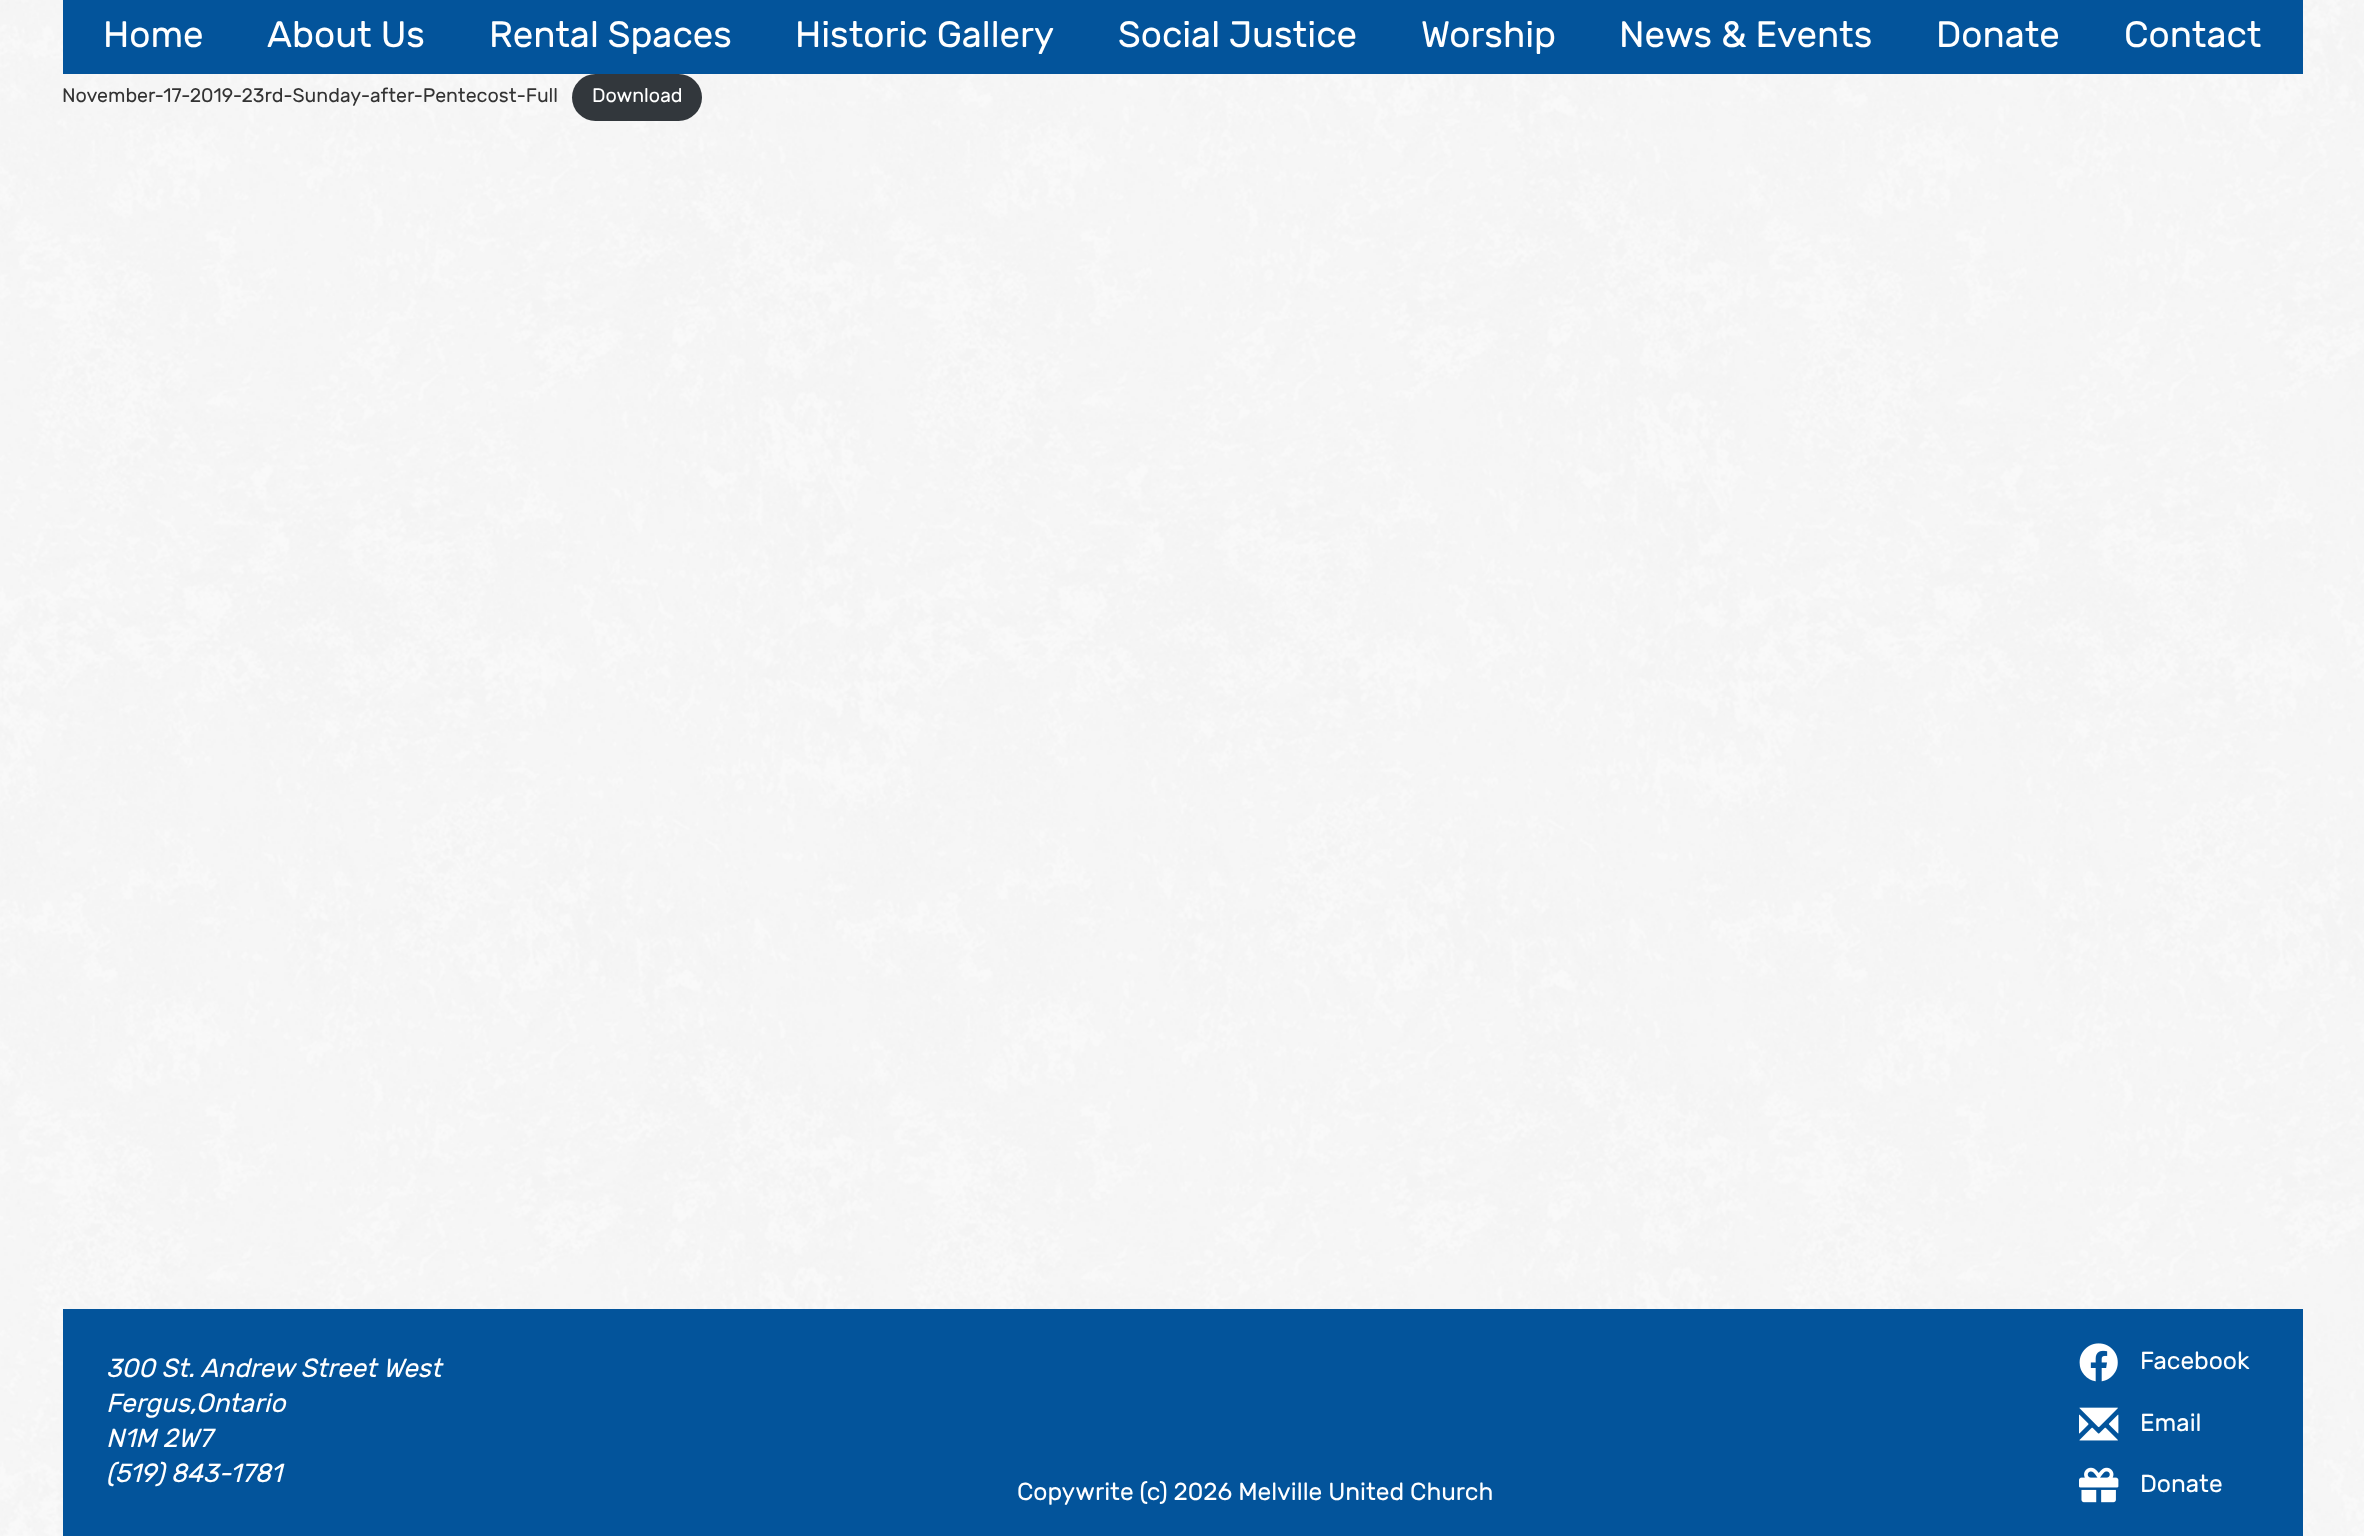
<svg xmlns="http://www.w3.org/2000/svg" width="2364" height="1536">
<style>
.a{font:36.75px Rubik;fill:#fff}
.b{font:19.6px Rubik;fill:#333}
.c{font:19.6px Rubik;fill:#fff}
.d{font:italic 26.25px Rubik;fill:#fff}
.e{font:24.5px Rubik;fill:#fff}
</style>
<rect width="100%" height="100%" fill="#fff"/>
<image href="1.png" x="0" y="0" width="2364" height="1536"/>
<path fill="#03549b" d="M63 0h2240v74H63z"/>
<rect fill="#32373c" x="572" y="74" width="130" height="47" rx="23.5"/>
<path fill="#03549b" d="M63 1309h2240v227H63z"/>
<image href="2.png" x="2079" y="1343" width="39" height="39"/>
<image href="3.png" x="2079" y="1407" width="40" height="34"/>
<image href="4.png" x="2079" y="1467" width="40" height="36"/>
<text class="a" x="103" y="47">Home</text>
<text class="a" x="267" y="47">About Us</text>
<text class="a" x="489" y="47">Rental Spaces</text>
<text class="a" x="795" y="47">Historic Gallery</text>
<text class="a" x="1118" y="47">Social Justice</text>
<text class="a" x="1421" y="47">Worship</text>
<text class="a" x="1619" y="47">News &amp; Events</text>
<text class="a" x="1936" y="47">Donate</text>
<text class="a" x="2124" y="47">Contact</text>
<text class="b" x="62" y="102">November-17-2019-23rd-Sunday-after-Pentecost-Full</text>
<text class="c" x="592" y="102">Download</text>
<text class="d" x="106" y="1377">300 St. Andrew Street West</text>
<text class="d" x="106" y="1412">Fergus,Ontario</text>
<text class="d" x="106" y="1447">N1M 2W7</text>
<text class="d" x="106" y="1482">(519) 843-1781</text>
<text class="e" x="2140" y="1369">Facebook</text>
<text class="e" x="2140" y="1431">Email</text>
<text class="e" x="2140" y="1492">Donate</text>
<text class="e" x="1017" y="1500">Copywrite (c) 2026 Melville United Church</text>
</svg>
